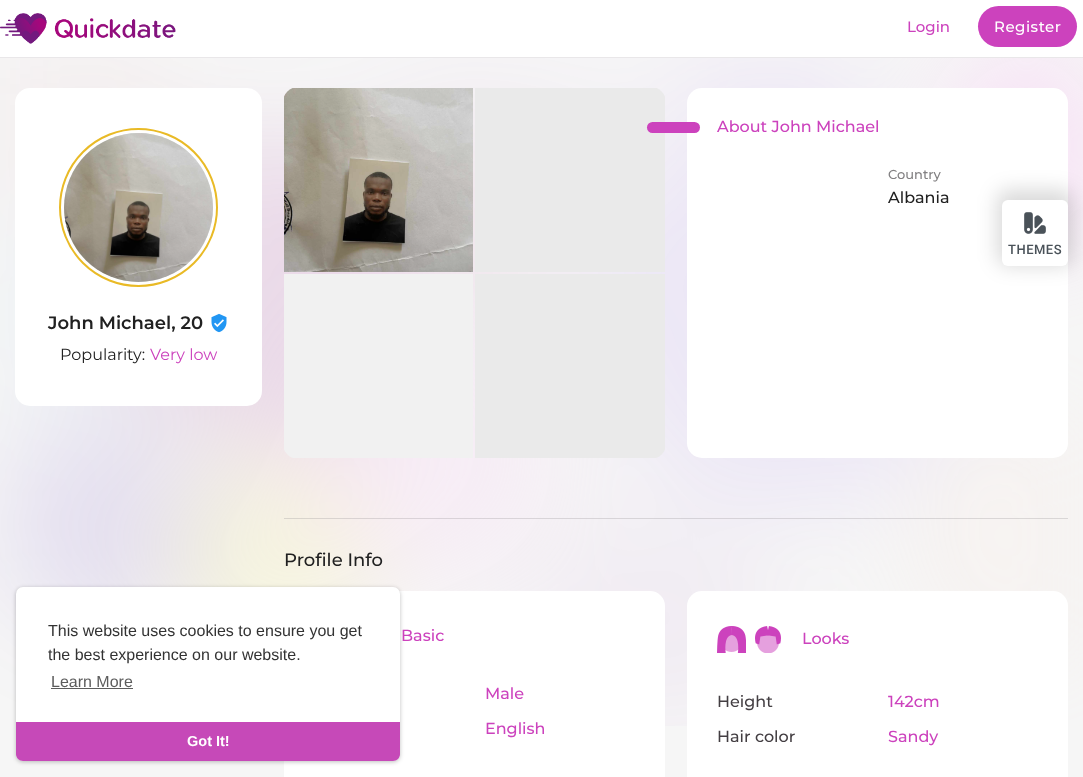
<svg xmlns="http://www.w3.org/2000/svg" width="1083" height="777">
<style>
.a{font:500 15px Montserrat;fill:#cc42bd}
.b{font:500 15px Montserrat;letter-spacing:0.5px;fill:#fff}
.c{font:600 18px Montserrat;fill:#212121}
.d{font:16px Montserrat;fill:#212121}
.e{font:16px Montserrat;fill:#cc42bd}
.f{font:500 16px Montserrat;fill:#cc42bd}
.g{font:500 13px Montserrat;fill:#828082}
.h{font:500 16px Montserrat;fill:#212121}
.i{font:500 18px Montserrat;fill:#212121}
.j{font:500 16px Montserrat;fill:#433e42}
.k{font:500 13px Roboto;letter-spacing:0.5px;fill:#4a5259}
.l{font:16px Liberation Sans;fill:#333}
.m{font:16px Liberation Sans;fill:#5c5c5c}
.n{font:bold 14.5px Liberation Sans;fill:#fff}
</style>
<defs>
<clipPath id="clip1"><rect x="283" y="87" width="383" height="372" rx="15"/></clipPath>
</defs>
<rect width="100%" height="100%" fill="#f6f6f6"/>
<path fill="#fff" d="M0 0h1083v57H0z"/>
<path fill="#e9e7e9" d="M0 57h1083v1H0z"/>
<image href="1.png" x="0" y="13" width="176" height="31"/>
<rect fill="#cc42bd" x="978" y="6" width="99" height="41" rx="20.5"/>
<image href="2.png" x="0" y="58" width="1083" height="668"/>
<rect fill="#fff" x="15" y="88" width="247" height="318" rx="15"/>
<circle fill="none" stroke="#e9ba26" stroke-width="2" cx="138.5" cy="207.5" r="78.5"/>
<circle fill="#e3e9ea" cx="138.5" cy="207.5" r="74.5"/>
<image href="3.png" x="64" y="133" width="149" height="149"/>
<image href="4.png" x="211" y="313" width="16" height="20"/>
<image href="5.png" x="284" y="88" width="189" height="184"/>
<g clip-path="url(#clip1)">
<path fill="#eaeaea" d="M475 88h190v184H475z"/>
<path fill="#f1f1f1" d="M284 274h189v184H284z"/>
<path fill="#eaeaea" d="M475 274h190v184H475z"/>
</g>
<rect fill="#fff" x="687" y="88" width="381" height="370" rx="15"/>
<rect fill="#cc42bd" x="647" y="122" width="53" height="11" rx="5.5"/>
<path fill="#82808240" d="M284 518h784v1H284z"/>
<rect fill="#fff" x="284" y="591" width="381" height="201" rx="15"/>
<rect fill="#fff" x="687" y="591" width="381" height="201" rx="15"/>
<image href="6.png" x="717" y="626" width="29" height="27"/>
<image href="7.png" x="755" y="626" width="26" height="27"/>
<rect fill="#00000026" filter="blur(10px)" x="997" y="190" width="76" height="76" rx="11"/>
<rect fill="#fff" x="1002" y="200" width="66" height="66" rx="6"/>
<image href="8.png" x="1024" y="212" width="22" height="22"/>
<rect fill="#00000040" filter="blur(2px)" x="16" y="588" width="384" height="174" rx="7"/>
<rect fill="#fff" x="16" y="587" width="384" height="174" rx="7"/>
<path fill="#5c5c5c" d="M51 688h82v1H51z"/>
<path fill="#c649b8" d="M16 722h384v32c0 4-3 7-7 7h-370c-4 0-7-3-7-7z"/>
<text class="a" x="907" y="32">Login</text>
<text class="b" x="994" y="32">Register</text>
<text class="c" x="48" y="329">John Michael, 20</text>
<text class="d" x="60" y="360">Popularity:</text>
<text class="e" x="150" y="360">Very low</text>
<text class="f" x="717" y="132">About John Michael</text>
<text class="g" x="888" y="179">Country</text>
<text class="h" x="888" y="203">Albania</text>
<text class="i" x="284" y="566">Profile Info</text>
<text class="f" x="401" y="641">Basic</text>
<text class="f" x="485" y="699">Male</text>
<text class="f" x="485" y="734">English</text>
<text class="f" x="802" y="644">Looks</text>
<text class="j" x="717" y="707">Height</text>
<text class="f" x="888" y="707">142cm</text>
<text class="j" x="717" y="742">Hair color</text>
<text class="f" x="888" y="742">Sandy</text>
<text class="k" x="1008" y="254">THEMES</text>
<text class="l" x="48" y="636">This website uses cookies to ensure you get</text>
<text class="l" x="48" y="660">the best experience on our website.</text>
<text class="m" x="51" y="687">Learn More</text>
<text class="n" x="187" y="746">Got It!</text>
</svg>
